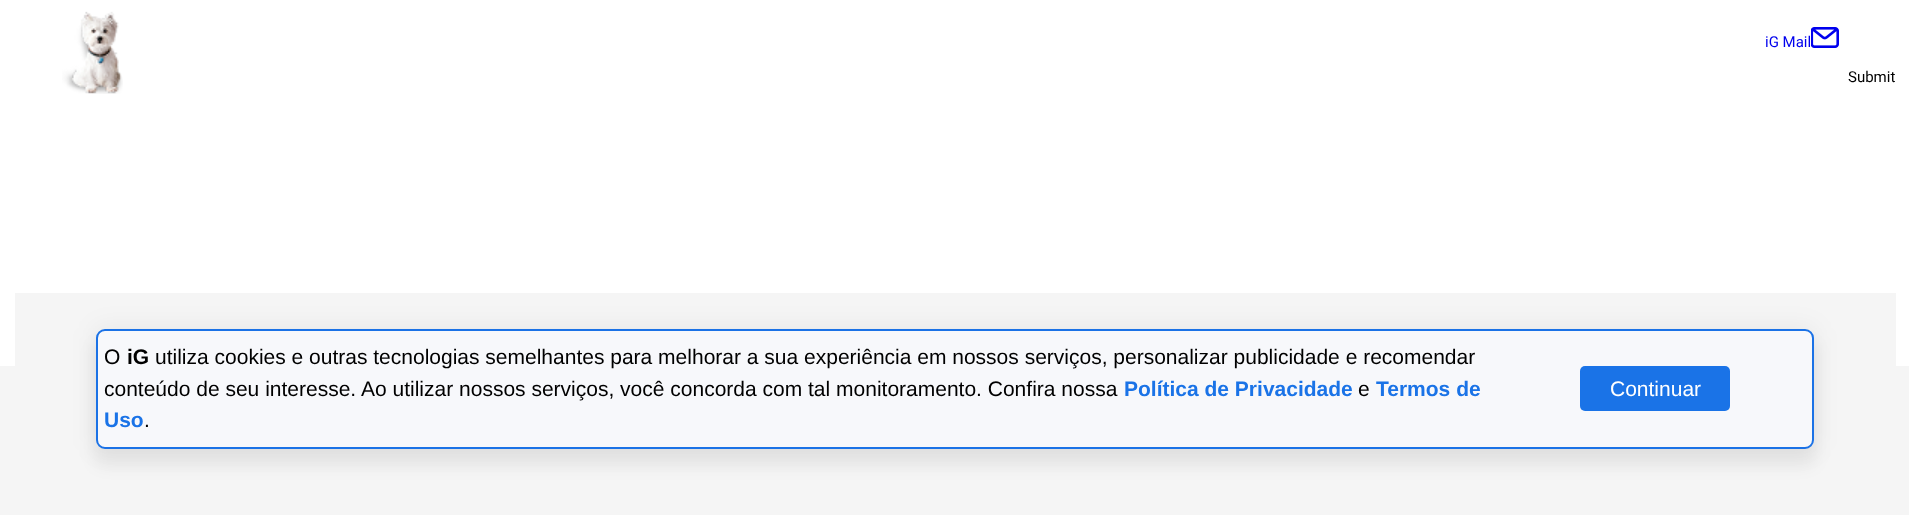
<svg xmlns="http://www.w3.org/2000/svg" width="1909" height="515">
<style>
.a{font:15px Roboto;fill:#00e}
.b{font:15px Roboto;fill:#000}
.c{font:21px Liberation Sans;fill:#000}
.d{font:bold 21px Liberation Sans;fill:#000}
.e{font:bold 21px Liberation Sans;fill:#1a73e7}
.f{font:21px Liberation Sans;fill:#fff}
</style>
<rect width="100%" height="100%" fill="#fff"/>
<image href="1.png" x="62" y="11" width="61" height="83"/>
<image href="2.png" x="1811" y="27" width="28" height="21"/>
<path fill="#f5f5f5" d="M0 366h1909v149H0z"/>
<path fill="#f5f5f5" d="M15 293h1881v73H15z"/>
<rect fill="#0000000d" filter="blur(7.5px)" x="93" y="341" width="1724" height="126" rx="12"/>
<rect fill="#0000000d" filter="blur(12px)" x="93" y="326" width="1724" height="126" rx="12"/>
<rect fill="#f7f8fb" stroke="#1b72e6" stroke-width="2" x="97" y="330" width="1716" height="118" rx="8"/>
<rect fill="#1a73e7" x="1580" y="366" width="150" height="45" rx="5"/>
<text class="a" x="1765" y="47">iG Mail</text>
<text class="b" x="1848" y="82">Submit</text>
<text class="c" x="104" y="364">O</text>
<text class="d" x="127" y="364">iG</text>
<text class="c" x="155" y="364">utiliza cookies e outras tecnologias semelhantes para melhorar a sua experiência em nossos serviços, personalizar publicidade e recomendar</text>
<text class="c" x="104" y="396">conteúdo de seu interesse.</text>
<text class="c" x="361" y="396">Ao utilizar nossos serviços, você concorda com tal monitoramento. Confira nossa</text>
<text class="e" x="1124" y="396">Política de Privacidade</text>
<text class="c" x="1358" y="396">e</text>
<text class="e" x="1376" y="396">Termos de</text>
<text class="e" x="104" y="427">Uso</text>
<text class="c" x="144" y="427">.</text>
<text class="f" x="1610" y="396">Continuar</text>
</svg>
